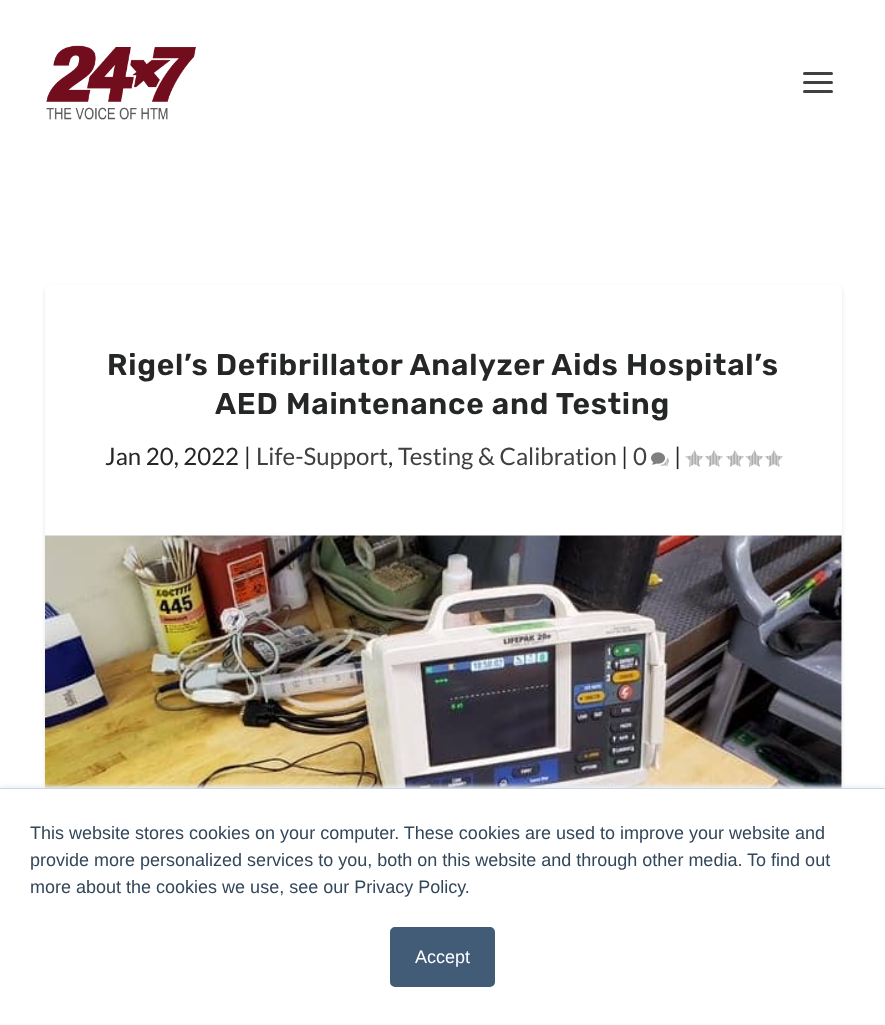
<svg xmlns="http://www.w3.org/2000/svg" width="885" height="1025">
<style>
.a{font:600 30px Rubik;letter-spacing:0.75px;fill:#252626}
.b{font:24px Lato;fill:#252626}
.c{font:24px Lato;fill:#404040}
.d{font:18px Liberation Sans;fill:#33475b}
.e{font:18px Liberation Sans;fill:#fff}
</style>
<rect width="100%" height="100%" fill="#fff"/>
<image href="1.png" x="46" y="45" width="150" height="75"/>
<rect fill="#404040" x="803" y="72" width="30" height="3" rx="1.5"/>
<rect fill="#404040" x="803" y="81" width="30" height="3" rx="1.5"/>
<rect fill="#404040" x="803" y="90" width="30" height="3" rx="1.5"/>
<rect fill="#0000001a" filter="blur(2px)" x="45" y="287" width="797" height="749" rx="5"/>
<rect fill="#fff" x="45" y="285" width="797" height="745" rx="5"/>
<image href="2.png" x="651" y="452" width="18" height="14"/>
<image href="3.png" x="685" y="450" width="19" height="17"/>
<image href="4.png" x="705" y="450" width="18" height="17"/>
<image href="4.png" x="726" y="450" width="18" height="17"/>
<image href="3.png" x="745" y="450" width="19" height="17"/>
<image href="4.png" x="765" y="450" width="18" height="17"/>
<image href="5.png" x="45" y="535" width="797" height="253"/>
<path fill="#eaf0f6" filter="blur(2px)" d="M0 786h885v239H0z"/>
<path fill="#cbd6e2" d="M0 788h885v1H0z"/>
<path fill="#fff" d="M0 789h885v236H0z"/>
<rect fill="#425b76" stroke="#425b76" stroke-width="2" x="391" y="928" width="103" height="58" rx="4"/>
<text class="a" x="107" y="375">Rigel’s Defibrillator Analyzer Aids Hospital’s</text>
<text class="a" x="215" y="414">AED Maintenance and Testing</text>
<text class="b" x="105" y="465">Jan 20, 2022 |</text>
<text class="c" x="256" y="465">Life-Support</text>
<text class="b" x="388" y="465">,</text>
<text class="c" x="398" y="465">Testing &amp; Calibration</text>
<text class="b" x="621" y="465">|</text>
<text class="c" x="633" y="465">0</text>
<text class="b" x="674" y="465">|</text>
<text class="d" x="30" y="839">This website stores cookies on your computer. These cookies are used to improve your website and</text>
<text class="d" x="30" y="866">provide more personalized services to you, both on this website and through other media. To find out</text>
<text class="d" x="30" y="893">more about the cookies we use, see our Privacy Policy.</text>
<text class="e" x="415" y="963">Accept</text>
</svg>
